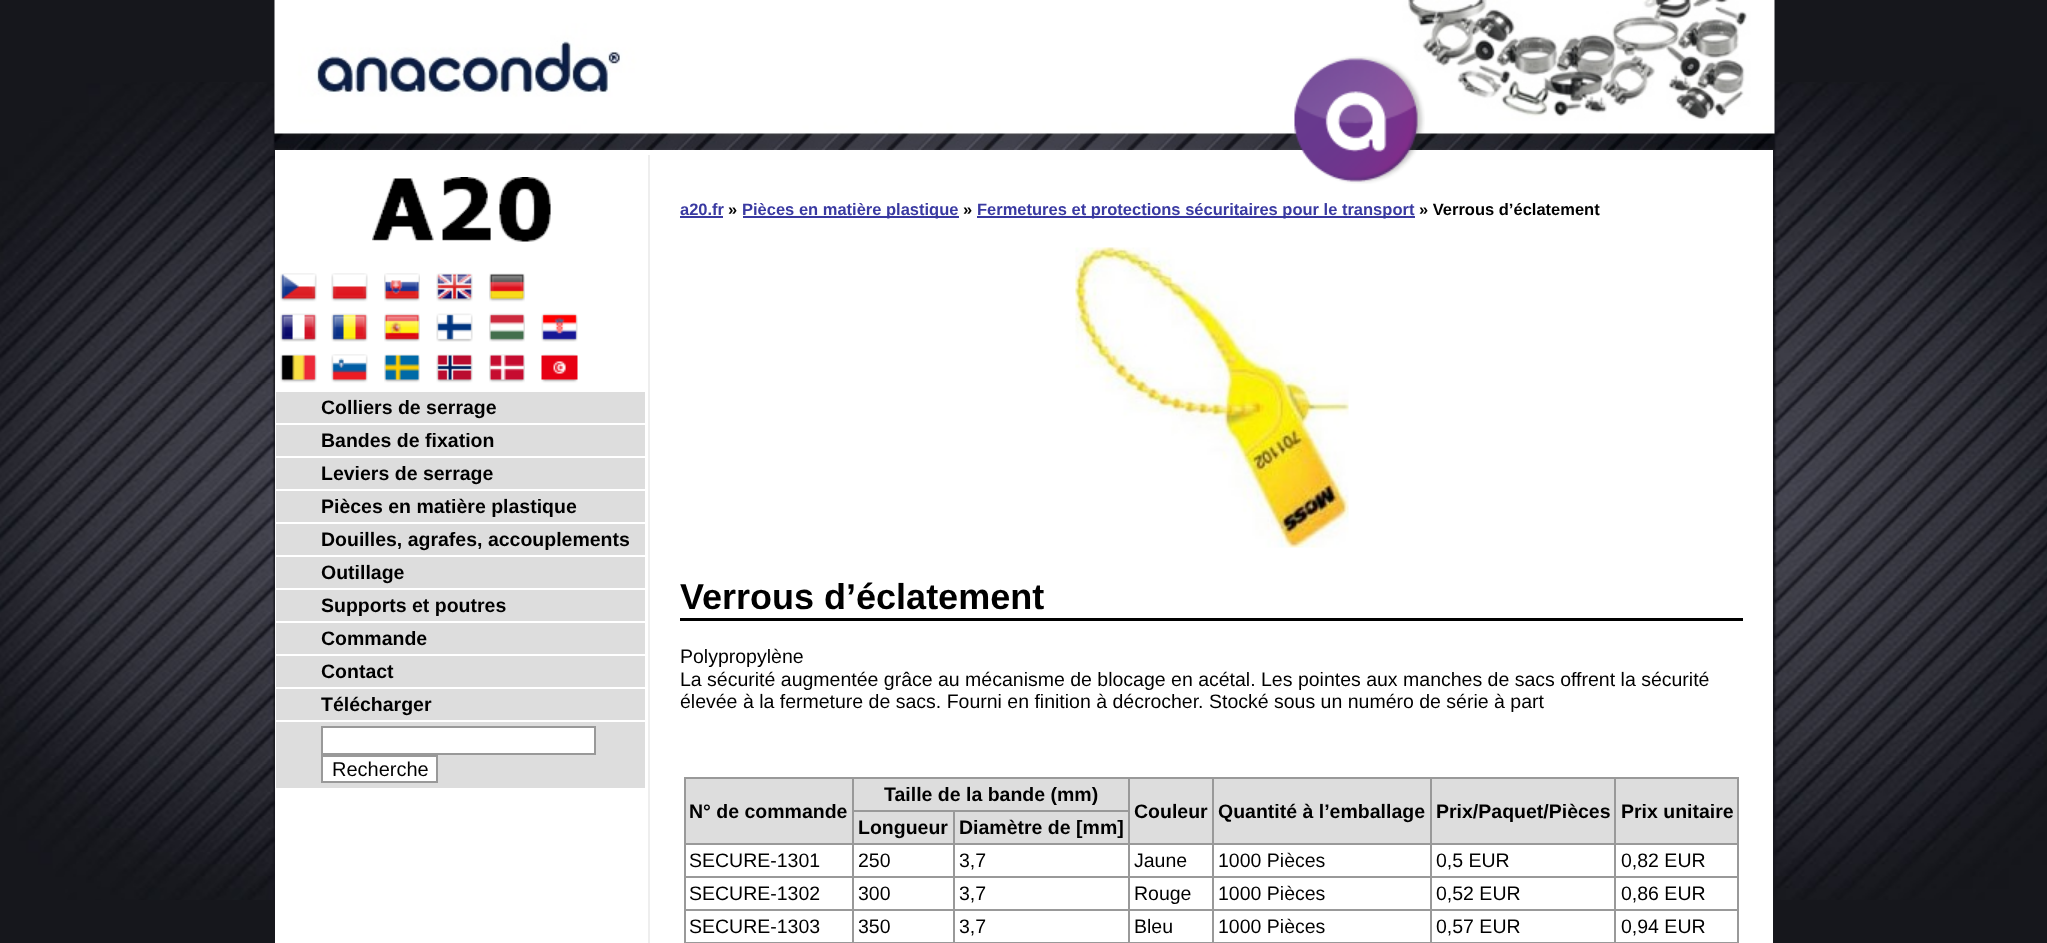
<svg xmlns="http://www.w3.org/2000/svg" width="2047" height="943">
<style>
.a{font:bold 19.5px Liberation Sans;fill:#000}
.b{font:20px Liberation Sans;fill:#000}
.c{font:bold 16.5px Liberation Sans;fill:#3939a1}
.d{font:bold 16.5px Liberation Sans;fill:#000}
.e{font:bold 36px Liberation Sans;fill:#000}
.f{font:19.5px Liberation Sans;fill:#000}
</style>
<rect width="100%" height="100%" fill="#16171c"/>
<image href="1.png" x="0" y="82" width="2047" height="818"/>
<path fill="#fff" d="M275 150h1498v793H275z"/>
<image href="2.png" x="274" y="0" width="1501" height="150"/>
<image href="3.png" x="1294" y="56" width="131" height="128"/>
<image href="4.png" x="372" y="177" width="179" height="65"/>
<image href="5.png" x="280" y="273" width="37" height="29"/>
<image href="6.png" x="331" y="273" width="37" height="29"/>
<image href="7.png" x="384" y="273" width="36" height="29"/>
<image href="8.png" x="436" y="273" width="37" height="29"/>
<image href="9.png" x="489" y="273" width="36" height="29"/>
<image href="10.png" x="280" y="313" width="37" height="29"/>
<image href="11.png" x="331" y="313" width="37" height="29"/>
<image href="12.png" x="384" y="313" width="36" height="29"/>
<image href="13.png" x="436" y="313" width="37" height="29"/>
<image href="14.png" x="489" y="313" width="36" height="29"/>
<image href="15.png" x="541" y="313" width="37" height="29"/>
<image href="16.png" x="280" y="354" width="37" height="29"/>
<image href="17.png" x="331" y="354" width="37" height="29"/>
<image href="18.png" x="384" y="354" width="36" height="29"/>
<image href="19.png" x="436" y="354" width="37" height="29"/>
<image href="20.png" x="489" y="354" width="36" height="29"/>
<image href="21.png" x="541" y="354" width="37" height="29"/>
<path fill="#ddd" d="M276 392h369v31H276z"/>
<path fill="#ddd" d="M276 425h369v31H276z"/>
<path fill="#ddd" d="M276 458h369v31H276z"/>
<path fill="#ddd" d="M276 491h369v31H276z"/>
<path fill="#ddd" d="M276 524h369v31H276z"/>
<path fill="#ddd" d="M276 557h369v31H276z"/>
<path fill="#ddd" d="M276 590h369v31H276z"/>
<path fill="#ddd" d="M276 623h369v31H276z"/>
<path fill="#ddd" d="M276 656h369v31H276z"/>
<path fill="#ddd" d="M276 689h369v31H276z"/>
<path fill="#ddd" d="M276 722h369v66H276z"/>
<path fill="#fff" stroke="#999" stroke-width="2" d="M322 727h273v27H322z"/>
<path fill="#fff" stroke="#999" stroke-width="2" d="M322 756h115v26H322z"/>
<path fill="#eee" d="M648 155h2v788H648z"/>
<path fill="#3939a1" d="M680 216h43v2H680z"/>
<path fill="#3939a1" d="M743 216h216v2H743z"/>
<path fill="#3939a1" d="M977 216h438v2H977z"/>
<image href="22.png" x="1075" y="247" width="274" height="301"/>
<path fill="#000" d="M680 618h1063v3H680z"/>
<path fill="#999" d="M684 777h1055v2H684z"/>
<path fill="#999" d="M1737 777h2v166H1737z"/>
<path fill="#999" d="M684 942h1055v1H684z"/>
<path fill="#999" d="M684 777h2v166H684z"/>
<path fill="#ddd" d="M854 779h274v31H854z"/>
<path fill="#ddd" d="M686 779h166v64H686z"/>
<path fill="#ddd" d="M1130 779h82v64H1130z"/>
<path fill="#999" d="M953 810h177v2H953z"/>
<path fill="#999" d="M1614 843h125v2H1614z"/>
<path fill="#999" d="M1614 876h125v2H1614z"/>
<path fill="#999" d="M1614 909h125v2H1614z"/>
<path fill="#999" d="M1614 909h2v34H1614z"/>
<path fill="#999" d="M1430 909h186v2H1430z"/>
<path fill="#999" d="M1614 876h2v35H1614z"/>
<path fill="#999" d="M1430 876h186v2H1430z"/>
<path fill="#999" d="M1614 843h2v35H1614z"/>
<path fill="#999" d="M1430 843h186v2H1430z"/>
<path fill="#999" d="M1430 909h2v34H1430z"/>
<path fill="#999" d="M1212 909h219v2H1212z"/>
<path fill="#999" d="M1430 876h2v35H1430z"/>
<path fill="#999" d="M1212 876h219v2H1212z"/>
<path fill="#999" d="M1430 843h2v35H1430z"/>
<path fill="#999" d="M1212 843h219v2H1212z"/>
<path fill="#999" d="M1212 909h2v34H1212z"/>
<path fill="#999" d="M1128 909h86v2H1128z"/>
<path fill="#999" d="M1212 876h2v35H1212z"/>
<path fill="#999" d="M1128 876h86v2H1128z"/>
<path fill="#999" d="M1212 843h2v35H1212z"/>
<path fill="#999" d="M1128 843h86v2H1128z"/>
<path fill="#999" d="M1128 909h2v34H1128z"/>
<path fill="#999" d="M953 909h177v2H953z"/>
<path fill="#999" d="M1128 876h2v35H1128z"/>
<path fill="#999" d="M953 876h177v2H953z"/>
<path fill="#999" d="M1128 843h2v35H1128z"/>
<path fill="#999" d="M953 843h177v2H953z"/>
<path fill="#999" d="M1128 777h2v68H1128z"/>
<path fill="#ddd" d="M1214 779h216v64H1214z"/>
<path fill="#999" d="M1212 777h2v68H1212z"/>
<path fill="#ddd" d="M1432 779h182v64H1432z"/>
<path fill="#999" d="M1430 777h2v68H1430z"/>
<path fill="#ddd" d="M1616 779h121v64H1616z"/>
<path fill="#999" d="M1614 777h2v68H1614z"/>
<path fill="#ddd" d="M854 812h99v31H854z"/>
<path fill="#999" d="M953 909h2v34H953z"/>
<path fill="#999" d="M852 909h102v2H852z"/>
<path fill="#999" d="M953 876h2v35H953z"/>
<path fill="#999" d="M852 876h102v2H852z"/>
<path fill="#999" d="M953 843h2v35H953z"/>
<path fill="#999" d="M852 843h102v2H852z"/>
<path fill="#999" d="M953 810h2v35H953z"/>
<path fill="#999" d="M852 810h102v2H852z"/>
<path fill="#999" d="M852 909h2v34H852z"/>
<path fill="#999" d="M684 909h170v2H684z"/>
<path fill="#999" d="M852 876h2v35H852z"/>
<path fill="#999" d="M684 876h170v2H684z"/>
<path fill="#999" d="M852 843h2v35H852z"/>
<path fill="#999" d="M684 843h170v2H684z"/>
<path fill="#999" d="M852 777h2v68H852z"/>
<path fill="#ddd" d="M955 812h173v31H955z"/>
<text class="a" x="321" y="414">Colliers de serrage</text>
<text class="a" x="321" y="447">Bandes de fixation</text>
<text class="a" x="321" y="480">Leviers de serrage</text>
<text class="a" x="321" y="513">Pièces en matière plastique</text>
<text class="a" x="321" y="546">Douilles, agrafes, accouplements</text>
<text class="a" x="321" y="579">Outillage</text>
<text class="a" x="321" y="612">Supports et poutres</text>
<text class="a" x="321" y="645">Commande</text>
<text class="a" x="321" y="678">Contact</text>
<text class="a" x="321" y="711">Télécharger</text>
<text class="b" x="332" y="776">Recherche</text>
<text class="c" x="680" y="215">a20.fr</text>
<text class="d" x="728" y="215">»</text>
<text class="c" x="742" y="215">Pièces en matière plastique</text>
<text class="d" x="963" y="215">»</text>
<text class="c" x="977" y="215">Fermetures et protections sécuritaires pour le transport</text>
<text class="d" x="1419" y="215">» Verrous d’éclatement</text>
<text class="e" x="680" y="609">Verrous d’éclatement</text>
<text class="f" x="680" y="663">Polypropylène</text>
<text class="f" x="680" y="686">La sécurité augmentée grâce au mécanisme de blocage en acétal. Les pointes aux manches de sacs offrent la sécurité</text>
<text class="f" x="680" y="708">élevée à la fermeture de sacs. Fourni en finition à décrocher. Stocké sous un numéro de série à part</text>
<text class="a" x="884" y="801">Taille de la bande (mm)</text>
<text class="a" x="689" y="818">N° de commande</text>
<text class="a" x="1134" y="818">Couleur</text>
<text class="a" x="1218" y="818">Quantité à l’emballage</text>
<text class="a" x="1436" y="818">Prix/Paquet/Pièces</text>
<text class="a" x="1621" y="818">Prix unitaire</text>
<text class="a" x="858" y="834">Longueur</text>
<text class="a" x="959" y="834">Diamètre de [mm]</text>
<text class="f" x="689" y="867">SECURE-1301</text>
<text class="f" x="858" y="867">250</text>
<text class="f" x="959" y="867">3,7</text>
<text class="f" x="1134" y="867">Jaune</text>
<text class="f" x="1218" y="867">1000 Pièces</text>
<text class="f" x="1436" y="867">0,5 EUR</text>
<text class="f" x="1621" y="867">0,82 EUR</text>
<text class="f" x="689" y="900">SECURE-1302</text>
<text class="f" x="858" y="900">300</text>
<text class="f" x="959" y="900">3,7</text>
<text class="f" x="1134" y="900">Rouge</text>
<text class="f" x="1218" y="900">1000 Pièces</text>
<text class="f" x="1436" y="900">0,52 EUR</text>
<text class="f" x="1621" y="900">0,86 EUR</text>
<text class="f" x="689" y="933">SECURE-1303</text>
<text class="f" x="858" y="933">350</text>
<text class="f" x="959" y="933">3,7</text>
<text class="f" x="1134" y="933">Bleu</text>
<text class="f" x="1218" y="933">1000 Pièces</text>
<text class="f" x="1436" y="933">0,57 EUR</text>
<text class="f" x="1621" y="933">0,94 EUR</text>
</svg>
